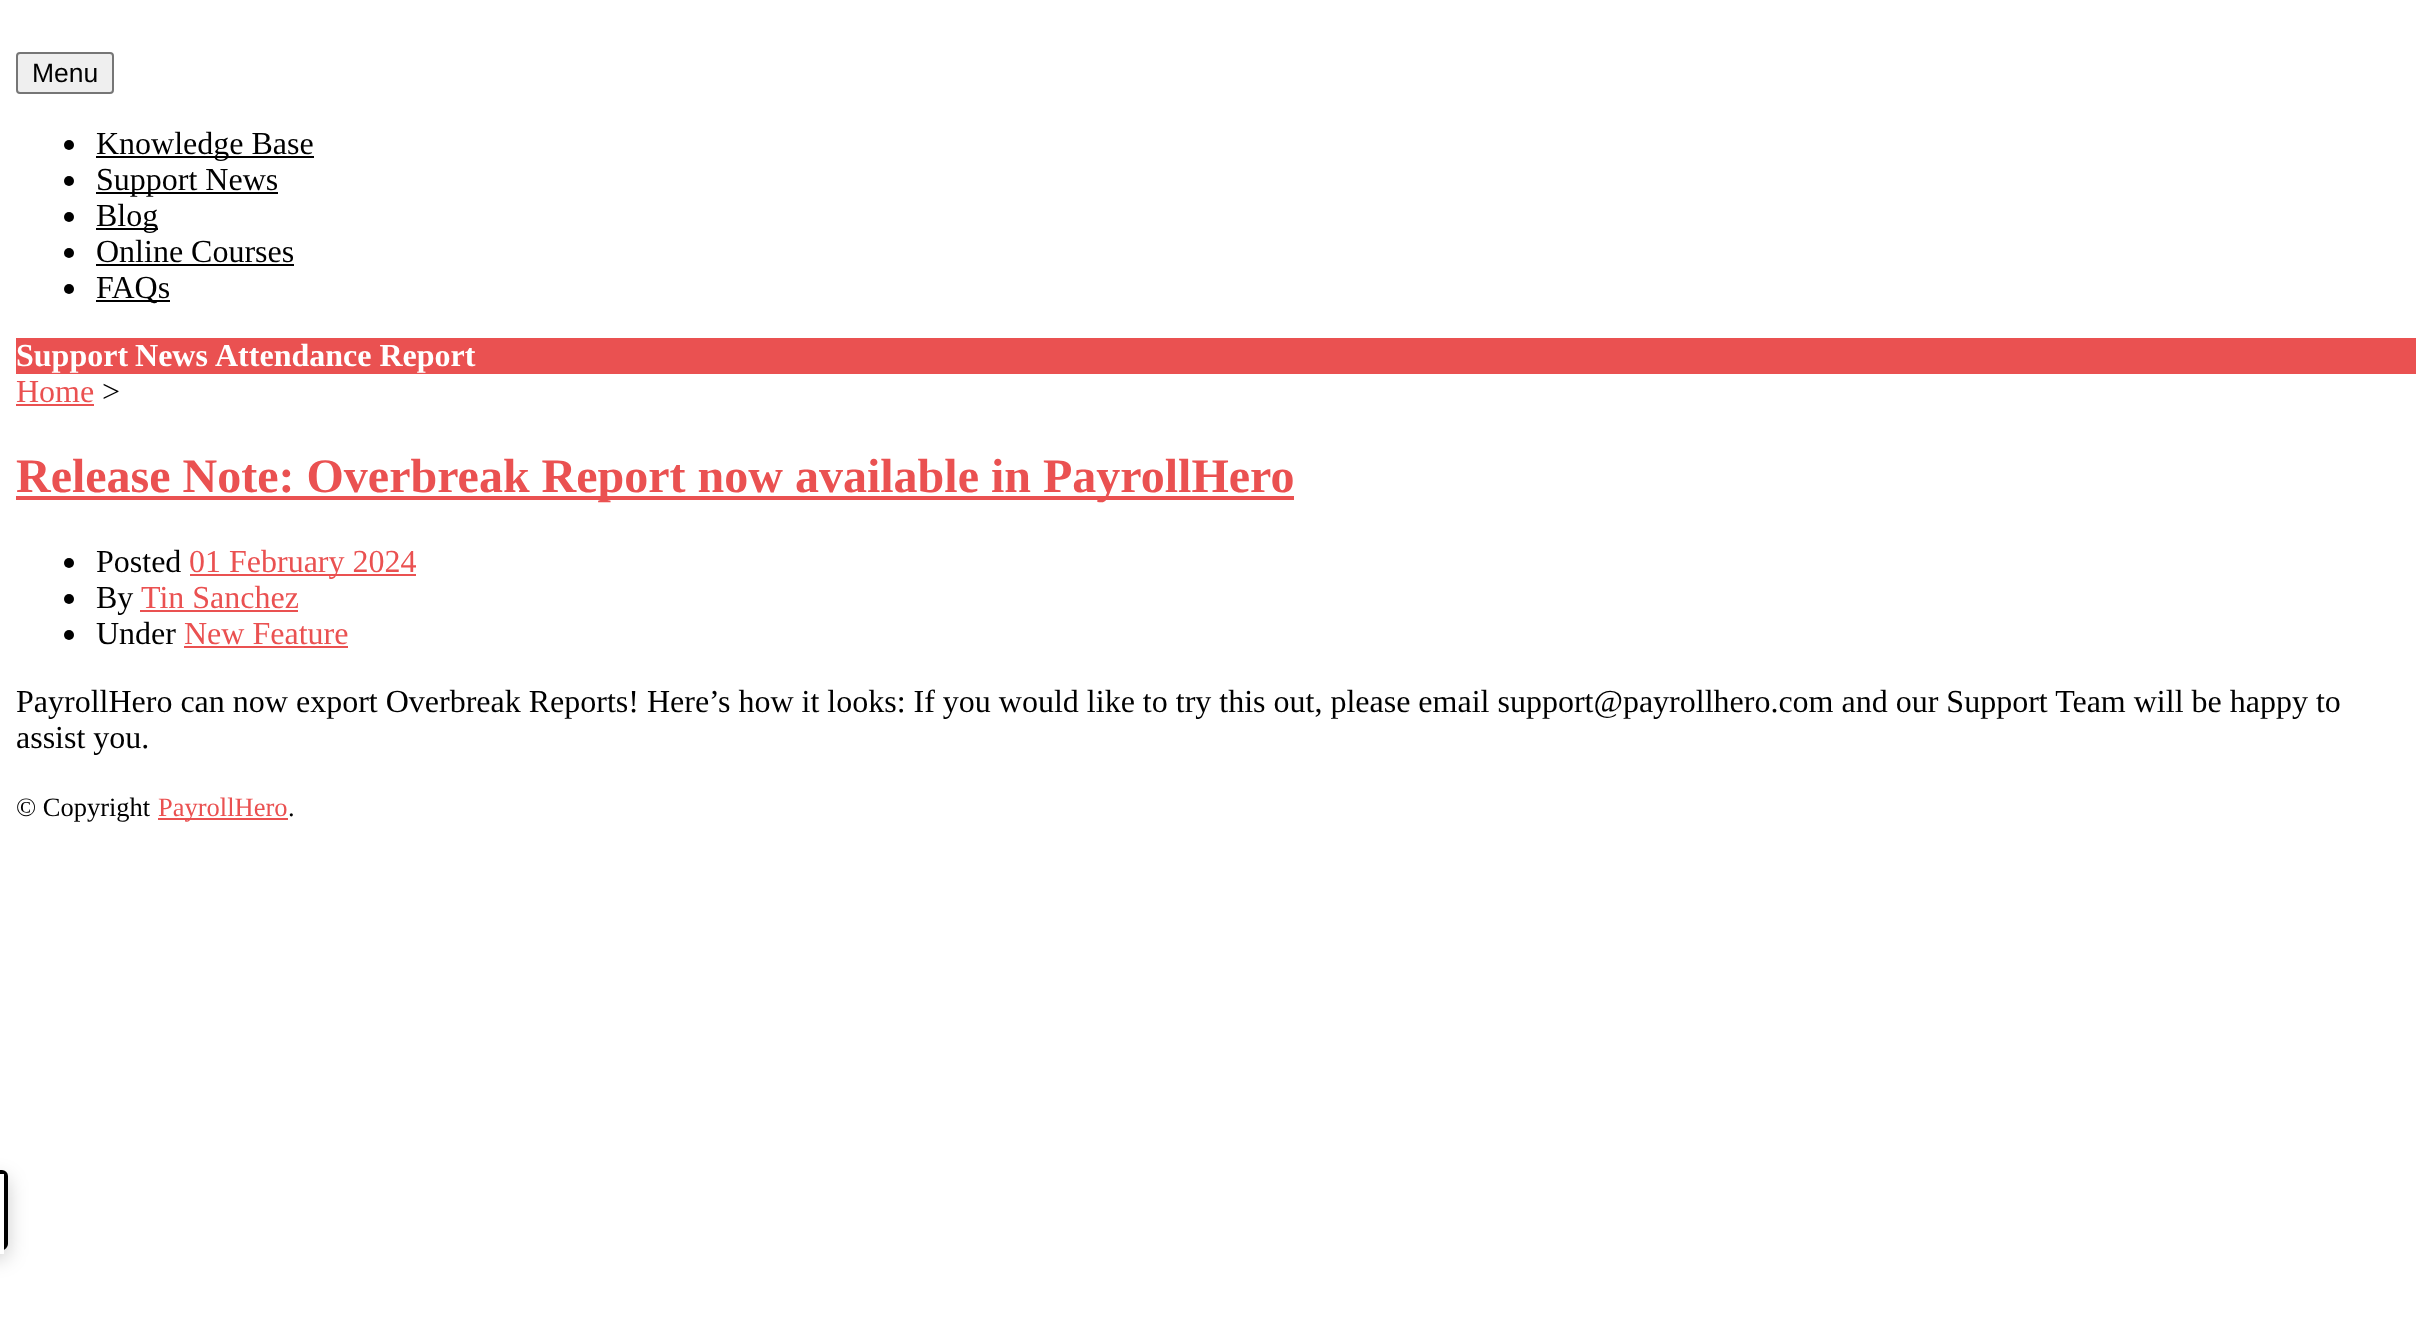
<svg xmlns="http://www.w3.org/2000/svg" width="2431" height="1329">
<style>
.a{font:26.5px Liberation Sans;fill:#000}
.b{font:32px Liberation Serif;fill:#000}
.c{font:bold 32px Liberation Serif;fill:#fff}
.d{font:32px Liberation Serif;fill:#ea5151}
.e{font:bold 48px Liberation Serif;fill:#ea5151}
.f{font:26.5px Liberation Serif;fill:#000}
.g{font:26.5px Liberation Serif;fill:#ea5151}
</style>
<rect width="100%" height="100%" fill="#fff"/>
<rect fill="#efefef" stroke="#767676" stroke-width="2" x="17" y="53" width="96" height="40" rx="3"/>
<circle fill="#000" cx="69" cy="145" r="5"/>
<path fill="#000" d="M96 156h218v2H96z"/>
<circle fill="#000" cx="69" cy="181" r="5"/>
<path fill="#000" d="M96 192h182v2H96z"/>
<circle fill="#000" cx="69" cy="217" r="5"/>
<path fill="#000" d="M96 228h62v2H96z"/>
<circle fill="#000" cx="69" cy="253" r="5"/>
<path fill="#000" d="M96 264h198v2H96z"/>
<circle fill="#000" cx="69" cy="289" r="5"/>
<path fill="#000" d="M96 300h74v2H96z"/>
<path fill="#ea5151" d="M16 338h2400v36H16z"/>
<path fill="#ea5151" d="M16 404h78v2H16z"/>
<path fill="#ea5151" d="M16 496h1278v4H16z"/>
<circle fill="#000" cx="69" cy="563" r="5"/>
<path fill="#ea5151" d="M190 574h226v2H190z"/>
<circle fill="#000" cx="69" cy="599" r="5"/>
<path fill="#ea5151" d="M140 610h158v2H140z"/>
<circle fill="#000" cx="69" cy="635" r="5"/>
<path fill="#ea5151" d="M184 646h164v2H184z"/>
<path fill="#ea5151" d="M158 818h130v2H158z"/>
<rect fill="#00000033" filter="blur(10px)" x="-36" y="1178" width="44" height="80" rx="6"/>
<path fill="none" stroke="#000" stroke-width="4" d="M-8 1172h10c2 0 4 2 4 4v68c0 2-2 4-4 4h-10z"/>
<path fill="#fff" d="M0 1174h4v80H0z"/>
<text class="a" x="32" y="82">Menu</text>
<text class="b" x="96" y="154">Knowledge Base</text>
<text class="b" x="96" y="190">Support News</text>
<text class="b" x="96" y="226">Blog</text>
<text class="b" x="96" y="262">Online Courses</text>
<text class="b" x="96" y="298">FAQs</text>
<text class="c" x="16" y="366" word-spacing="-1">Support News</text>
<text class="c" x="215" y="366">Attendance Report</text>
<text class="d" x="16" y="402">Home</text>
<text class="b" x="102" y="402">&gt;</text>
<text class="e" x="16" y="492">Release Note: Overbreak Report now available in PayrollHero</text>
<text class="b" x="96" y="572">Posted</text>
<text class="d" x="189" y="572">01 February 2024</text>
<text class="b" x="96" y="608">By</text>
<text class="d" x="141" y="608">Tin Sanchez</text>
<text class="b" x="96" y="644">Under</text>
<text class="d" x="184" y="644">New Feature</text>
<text class="b" x="16" y="712">PayrollHero can now export Overbreak Reports! Here’s how it looks: If you would like to try this out, please email support@payrollhero.com and our Support Team will be happy to</text>
<text class="b" x="16" y="748">assist you.</text>
<text class="f" x="16" y="816">© Copyright</text>
<text class="g" x="158" y="816">PayrollHero</text>
<text class="f" x="288" y="816">.</text>
</svg>
